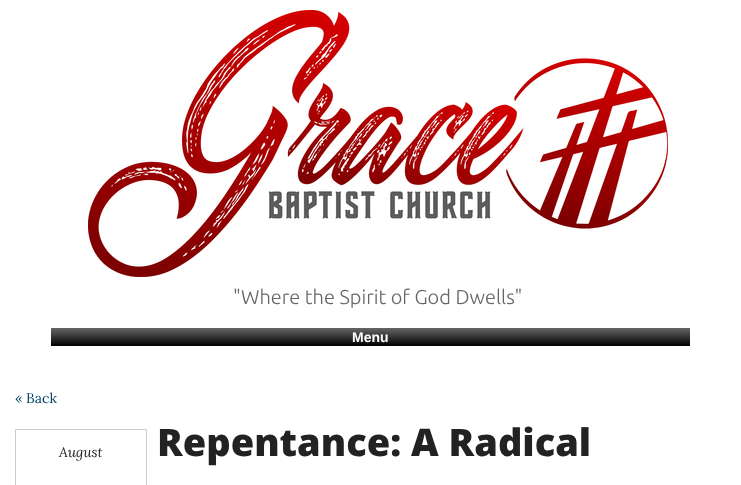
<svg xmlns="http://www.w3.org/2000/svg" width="741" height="485">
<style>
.a{font:300 20px Ubuntu;fill:#666}
.b{font:bold 14px Liberation Sans;fill:#fff}
.c{font:14px Lora;fill:#034365}
.d{font:italic 14px Lora;fill:#222}
.e{font:800 38px Open Sans;fill:#222}
</style>
<defs>
<linearGradient id="g1" gradientUnits="userSpaceOnUse" x1="371" y1="328" x2="371" y2="346"><stop offset="0" stop-color="#666"/><stop offset="1" stop-color="#000"/></linearGradient>
</defs>
<rect width="100%" height="100%" fill="#fff"/>
<image href="1.png" x="88" y="10" width="580" height="267"/>
<path fill="url(#g1)" d="M51 328h639v18H51z"/>
<path fill="none" stroke="#ccc" d="M15.5 429.5h131v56H15.5z"/>
<text class="a" x="233" y="304">"Where the Spirit of God Dwells"</text>
<text class="b" x="352" y="342">Menu</text>
<text class="c" x="15" y="403">« Back</text>
<text class="d" x="59" y="457">August</text>
<text class="e" x="157" y="456">Repentance: A Radical</text>
</svg>
